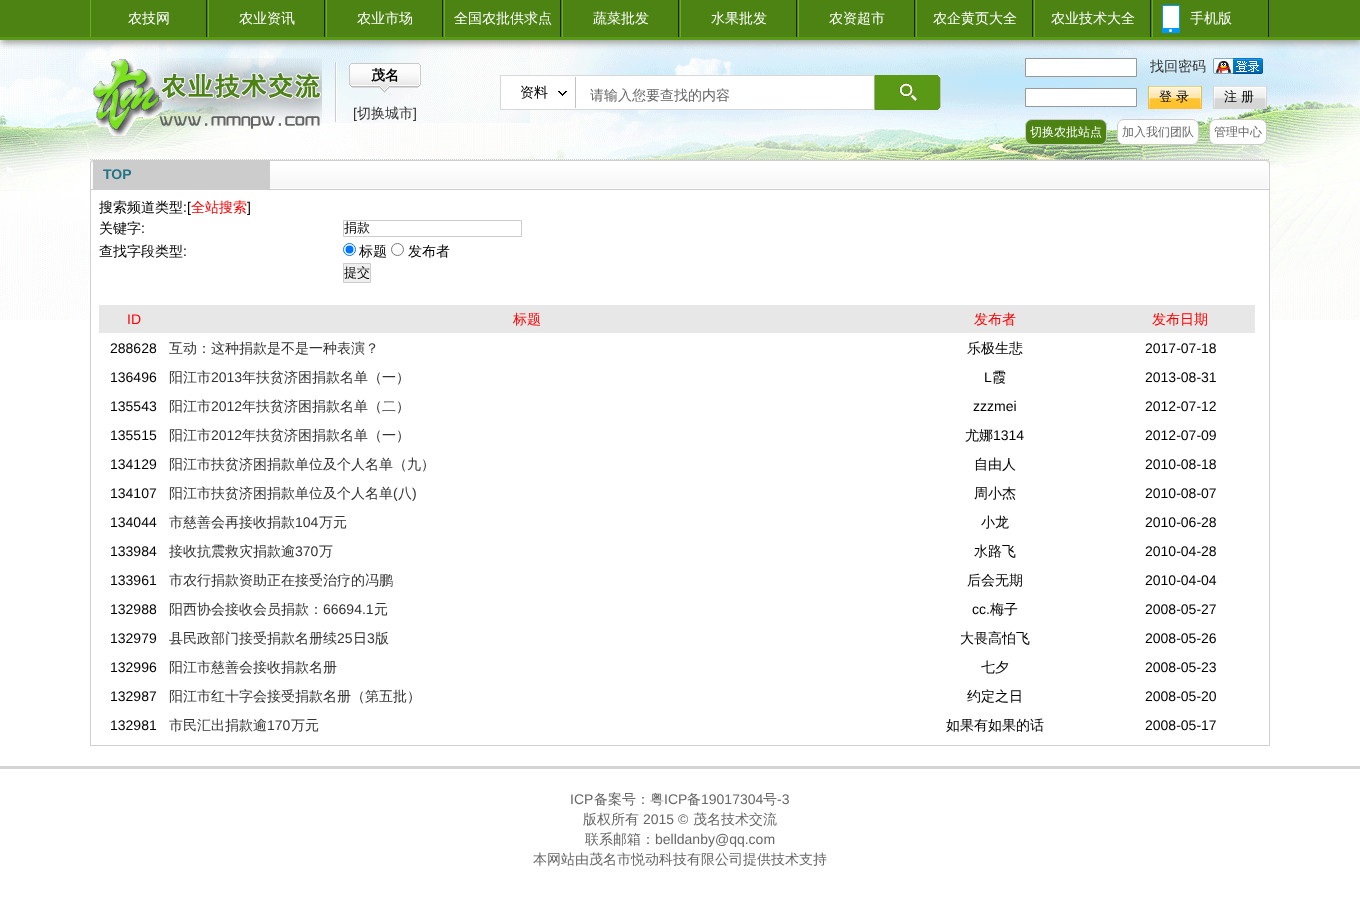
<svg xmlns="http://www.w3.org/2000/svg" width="1360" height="922">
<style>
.a{font:500 14px WenQuanYi Zen Hei;fill:#fff}
.b{font:bold 14px WenQuanYi Zen Hei;fill:#000}
.c{font:14px Liberation Sans;fill:#333}
.d{font:500 14px WenQuanYi Zen Hei;fill:#333}
.e{font:500 14px WenQuanYi Zen Hei;fill:#000}
.f{font:500 14px WenQuanYi Zen Hei;fill:#666}
.g{font:500 13px WenQuanYi Zen Hei;fill:#000}
.h{font:500 12px WenQuanYi Zen Hei;fill:#fff}
.i{font:500 12px WenQuanYi Zen Hei;fill:#666}
.j{font:bold 14px Liberation Sans;fill:#247384}
.k{font:14px Liberation Sans;fill:#000}
.l{font:500 14px WenQuanYi Zen Hei;fill:#f00}
.m{font:14px Liberation Sans;fill:#f00}
.n{font:14px Liberation Sans;fill:#666}
</style>
<rect width="100%" height="100%" fill="#fff"/>
<image href="1.png" x="0" y="40" width="1360" height="280"/>
<path fill="#999" filter="blur(3.5px)" d="M1 3h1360v40H1z"/>
<path fill="#4c8312" d="M0 0h1360v37H0z"/>
<path fill="#599915" d="M0 37h1360v3H0z"/>
<path fill="#1f1f1f" d="M206 0h1v37H206z"/>
<path fill="#67b019" d="M90 0h1v37H90z"/>
<path fill="#1f1f1f" d="M324 0h1v37H324z"/>
<path fill="#67b019" d="M208 0h1v37H208z"/>
<path fill="#1f1f1f" d="M442 0h1v37H442z"/>
<path fill="#67b019" d="M326 0h1v37H326z"/>
<path fill="#1f1f1f" d="M560 0h1v37H560z"/>
<path fill="#67b019" d="M444 0h1v37H444z"/>
<path fill="#1f1f1f" d="M678 0h1v37H678z"/>
<path fill="#67b019" d="M562 0h1v37H562z"/>
<path fill="#1f1f1f" d="M796 0h1v37H796z"/>
<path fill="#67b019" d="M680 0h1v37H680z"/>
<path fill="#1f1f1f" d="M914 0h1v37H914z"/>
<path fill="#67b019" d="M798 0h1v37H798z"/>
<path fill="#1f1f1f" d="M1032 0h1v37H1032z"/>
<path fill="#67b019" d="M916 0h1v37H916z"/>
<path fill="#1f1f1f" d="M1150 0h1v37H1150z"/>
<path fill="#67b019" d="M1034 0h1v37H1034z"/>
<image href="2.png" x="1162" y="5" width="18" height="28"/>
<path fill="#1f1f1f" d="M1268 0h1v37H1268z"/>
<path fill="#67b019" d="M1152 0h1v37H1152z"/>
<image href="3.png" x="92" y="58" width="230" height="78"/>
<image href="4.png" x="335" y="62" width="2" height="60"/>
<image href="5.png" x="349" y="63" width="72" height="30"/>
<image href="6.png" x="500" y="75" width="441" height="35"/>
<path fill="#fff" stroke="#999" d="M1025.5 58.5h111v18H1025.5z"/>
<image href="7.png" x="1213" y="58" width="50" height="16"/>
<path fill="#fff" stroke="#999" d="M1025.5 88.5h111v18H1025.5z"/>
<image href="8.png" x="1148" y="86" width="54" height="23"/>
<image href="9.png" x="1213" y="86" width="54" height="23"/>
<rect fill="#4c8312" stroke="#ccc" x="1025.5" y="119.5" width="81" height="25" rx="6.5"/>
<rect fill="#fff" stroke="#ccc" x="1117.5" y="119.5" width="81" height="25" rx="6.5"/>
<rect fill="#fff" stroke="#ccc" x="1209.5" y="119.5" width="57" height="25" rx="6.5"/>
<path fill="none" stroke="#ccc" stroke-dasharray="1 1" d="M90 159.5h1180"/>
<path fill="#fff" d="M91 190h1178v130H91z"/>
<path fill="#ccc" d="M90 160h1180v30H90z"/>
<image href="10.png" x="270" y="160" width="1000" height="29"/>
<image href="11.png" x="90" y="160" width="3" height="29"/>
<path fill="#d0d0d0" d="M1269 190h1v556H1269z"/>
<path fill="#d0d0d0" d="M90 745h1180v1H90z"/>
<path fill="#d0d0d0" d="M90 190h1v556H90z"/>
<path fill="none" stroke="#ccc" d="M343.5 220.5h178v16H343.5z"/>
<circle fill="none" stroke="#0075ff" cx="349.5" cy="249.5" r="6"/>
<circle fill="#0075ff" cx="349.5" cy="249.5" r="4"/>
<circle fill="none" stroke="#767676" cx="397.5" cy="249.5" r="6"/>
<path fill="#efefef" stroke="#ccc" d="M343.5 263.5h27v19H343.5z"/>
<path fill="#e7e7e7" d="M99 305h1156v28H99z"/>
<path fill="#d4d4d4" d="M0 766h1360v3H0z"/>
<text class="a" x="128" y="23">农技网</text>
<text class="a" x="239" y="23">农业资讯</text>
<text class="a" x="357" y="23">农业市场</text>
<text class="a" x="454" y="23">全国农批供求点</text>
<text class="a" x="593" y="23">蔬菜批发</text>
<text class="a" x="711" y="23">水果批发</text>
<text class="a" x="829" y="23">农资超市</text>
<text class="a" x="933" y="23">农企黄页大全</text>
<text class="a" x="1051" y="23">农业技术大全</text>
<text class="a" x="1190" y="23">手机版</text>
<text class="b" x="371" y="80">茂名</text>
<text class="c" x="353" y="118">[</text>
<text class="d" x="357" y="118">切换城市</text>
<text class="c" x="413" y="118">]</text>
<text class="e" x="520" y="97">资料</text>
<text class="f" x="590" y="100">请输入您要查找的内容</text>
<text class="d" x="1150" y="71">找回密码</text>
<text class="g" x="1159" y="101">登 录</text>
<text class="g" x="1224" y="101">注 册</text>
<text class="h" x="1030" y="136">切换农批站点</text>
<text class="i" x="1122" y="136">加入我们团队</text>
<text class="i" x="1214" y="136">管理中心</text>
<text class="j" x="103" y="179">TOP</text>
<text class="e" x="99" y="212">搜索频道类型</text>
<text class="k" x="183" y="212">:[</text>
<text class="l" x="191" y="212">全站搜索</text>
<text class="k" x="247" y="212">]</text>
<text class="e" x="99" y="233">关键字</text>
<text class="k" x="141" y="233">:</text>
<text class="g" x="344" y="232">捐款</text>
<text class="e" x="99" y="256">查找字段类型</text>
<text class="k" x="183" y="256">:</text>
<text class="e" x="359" y="256">标题</text>
<text class="e" x="408" y="256">发布者</text>
<text class="g" x="344" y="277">提交</text>
<text class="m" x="127" y="324">ID</text>
<text class="l" x="513" y="324">标题</text>
<text class="l" x="974" y="324">发布者</text>
<text class="l" x="1152" y="324">发布日期</text>
<text class="k" x="110" y="353">288628</text>
<text class="d" x="169" y="353">互动：这种捐款是不是一种表演？</text>
<text class="e" x="967" y="353">乐极生悲</text>
<text class="k" x="1145" y="353">2017-07-18</text>
<text class="k" x="110" y="382">136496</text>
<text class="d" x="169" y="382">阳江市</text>
<text class="c" x="211" y="382">2013</text>
<text class="d" x="242" y="382">年扶贫济困捐款名单（一）</text>
<text class="k" x="984" y="382">L</text>
<text class="e" x="992" y="382">霞</text>
<text class="k" x="1145" y="382">2013-08-31</text>
<text class="k" x="110" y="411">135543</text>
<text class="d" x="169" y="411">阳江市</text>
<text class="c" x="211" y="411">2012</text>
<text class="d" x="242" y="411">年扶贫济困捐款名单（二）</text>
<text class="k" x="973" y="411">zzzmei</text>
<text class="k" x="1145" y="411">2012-07-12</text>
<text class="k" x="110" y="440">135515</text>
<text class="d" x="169" y="440">阳江市</text>
<text class="c" x="211" y="440">2012</text>
<text class="d" x="242" y="440">年扶贫济困捐款名单（一）</text>
<text class="e" x="965" y="440">尤娜</text>
<text class="k" x="993" y="440">1314</text>
<text class="k" x="1145" y="440">2012-07-09</text>
<text class="k" x="110" y="469">134129</text>
<text class="d" x="169" y="469">阳江市扶贫济困捐款单位及个人名单（九）</text>
<text class="e" x="974" y="469">自由人</text>
<text class="k" x="1145" y="469">2010-08-18</text>
<text class="k" x="110" y="498">134107</text>
<text class="d" x="169" y="498">阳江市扶贫济困捐款单位及个人名单</text>
<text class="c" x="393" y="498">(</text>
<text class="d" x="398" y="498">八</text>
<text class="c" x="412" y="498">)</text>
<text class="e" x="974" y="498">周小杰</text>
<text class="k" x="1145" y="498">2010-08-07</text>
<text class="k" x="110" y="527">134044</text>
<text class="d" x="169" y="527">市慈善会再接收捐款</text>
<text class="c" x="295" y="527">104</text>
<text class="d" x="319" y="527">万元</text>
<text class="e" x="981" y="527">小龙</text>
<text class="k" x="1145" y="527">2010-06-28</text>
<text class="k" x="110" y="556">133984</text>
<text class="d" x="169" y="556">接收抗震救灾捐款逾</text>
<text class="c" x="295" y="556">370</text>
<text class="d" x="319" y="556">万</text>
<text class="e" x="974" y="556">水路飞</text>
<text class="k" x="1145" y="556">2010-04-28</text>
<text class="k" x="110" y="585">133961</text>
<text class="d" x="169" y="585">市农行捐款资助正在接受治疗的冯鹏</text>
<text class="e" x="967" y="585">后会无期</text>
<text class="k" x="1145" y="585">2010-04-04</text>
<text class="k" x="110" y="614">132988</text>
<text class="d" x="169" y="614">阳西协会接收会员捐款：</text>
<text class="c" x="323" y="614">66694.1</text>
<text class="d" x="374" y="614">元</text>
<text class="k" x="972" y="614">cc.</text>
<text class="e" x="990" y="614">梅子</text>
<text class="k" x="1145" y="614">2008-05-27</text>
<text class="k" x="110" y="643">132979</text>
<text class="d" x="169" y="643">县民政部门接受捐款名册续</text>
<text class="c" x="337" y="643">25</text>
<text class="d" x="353" y="643">日</text>
<text class="c" x="367" y="643">3</text>
<text class="d" x="375" y="643">版</text>
<text class="e" x="960" y="643">大畏高怕飞</text>
<text class="k" x="1145" y="643">2008-05-26</text>
<text class="k" x="110" y="672">132996</text>
<text class="d" x="169" y="672">阳江市慈善会接收捐款名册</text>
<text class="e" x="981" y="672">七夕</text>
<text class="k" x="1145" y="672">2008-05-23</text>
<text class="k" x="110" y="701">132987</text>
<text class="d" x="169" y="701">阳江市红十字会接受捐款名册（第五批）</text>
<text class="e" x="967" y="701">约定之日</text>
<text class="k" x="1145" y="701">2008-05-20</text>
<text class="k" x="110" y="730">132981</text>
<text class="d" x="169" y="730">市民汇出捐款逾</text>
<text class="c" x="267" y="730">170</text>
<text class="d" x="291" y="730">万元</text>
<text class="e" x="946" y="730">如果有如果的话</text>
<text class="k" x="1145" y="730">2008-05-17</text>
<text class="n" x="570" y="804">ICP</text>
<text class="f" x="594" y="804">备案号：粤</text>
<text class="n" x="664" y="804">ICP</text>
<text class="f" x="687" y="804">备</text>
<text class="n" x="701" y="804">19017304</text>
<text class="f" x="763" y="804">号</text>
<text class="n" x="777" y="804">-3</text>
<text class="f" x="583" y="824">版权所有</text>
<text class="n" x="643" y="824">2015 ©</text>
<text class="f" x="693" y="824">茂名技术交流</text>
<text class="f" x="585" y="844">联系邮箱：</text>
<text class="n" x="655" y="844">belldanby@qq.com</text>
<text class="f" x="533" y="864">本网站由茂名市悦动科技有限公司提供技术支持</text>
</svg>
